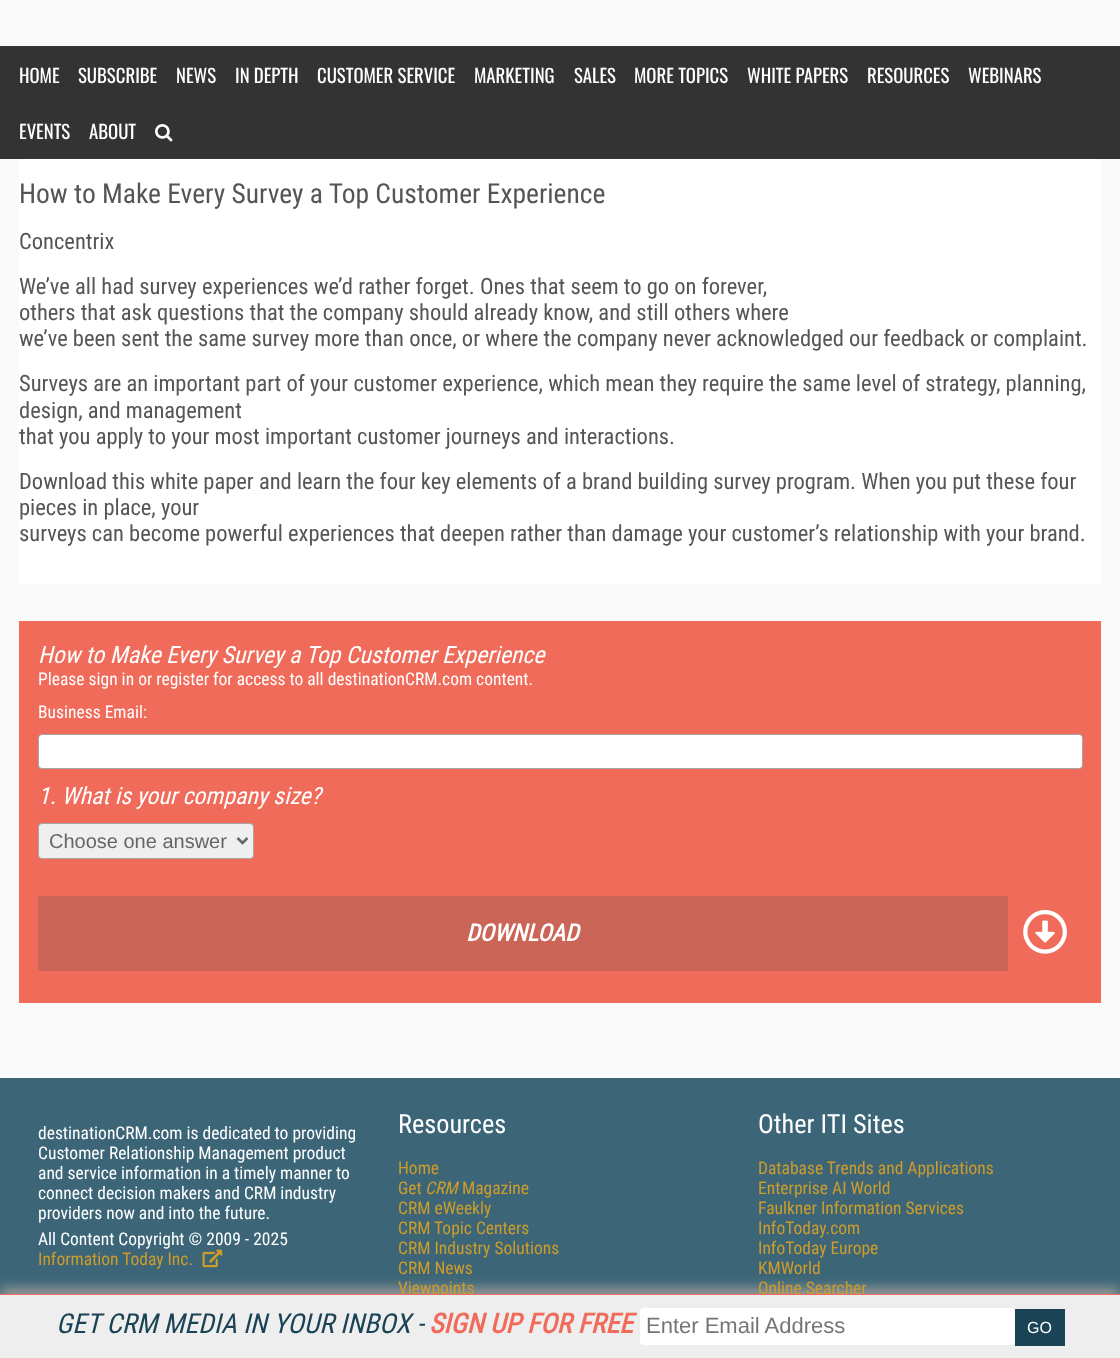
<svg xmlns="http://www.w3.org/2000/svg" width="1120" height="1358">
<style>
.a{font:18.75px Oswald;fill:#fff}
.b{font:27.5px Roboto Condensed;fill:#555}
.c{font:22.5px Roboto Condensed;fill:#555}
.d{font:italic 23.75px Roboto Condensed;fill:#fff}
.e{font:17.5px Roboto Condensed;fill:#fff}
.f{font:20px Liberation Sans;fill:#666}
.g{font:italic bold 23.75px Roboto Condensed;fill:#fff}
.h{font:17.5px Roboto Condensed;fill:#ce9c2b}
.i{font:26.25px Roboto Condensed;fill:#fff}
.j{font:italic 17.5px Roboto Condensed;fill:#ce9c2b}
.k{font:italic 27.5px Roboto Condensed;fill:#1a4455}
.l{font:italic bold 27.5px Roboto Condensed;fill:#f06b5a}
.m{font:22px Liberation Sans;fill:#757575}
.n{font:16px Liberation Sans;fill:#fff}
</style>
<rect width="100%" height="100%" fill="#fafafa"/>
<path fill="#333" d="M0 46h1120v113H0z"/>
<image href="1.png" x="155" y="124" width="18" height="18"/>
<path fill="#fff" d="M19 159h1082v425H19z"/>
<path fill="#f06b5a" d="M19 621h1082v382H19z"/>
<rect fill="#fff" stroke="#a5a5a5" x="38.5" y="734.5" width="1044" height="34" rx="3.5"/>
<rect fill="#efefef" stroke="#a5a5a5" x="38.5" y="823.5" width="215" height="35" rx="3.5"/>
<path fill="none" stroke="#666" stroke-width="2.5" d="M237.5 838l5 5l5-5"/>
<path fill="#cb6557" d="M38 896h970v75H38z"/>
<image href="2.png" x="1023" y="910" width="44" height="44"/>
<path fill="#3c6677" d="M0 1078h1120v216H0z"/>
<image href="3.png" x="202" y="1249" width="21" height="19"/>
<path fill="#999" filter="blur(6px)" d="M0 1288h1120v65H0z"/>
<text class="a" x="19" y="83">HOME</text>
<text class="a" x="78" y="83">SUBSCRIBE</text>
<text class="a" x="176" y="83">NEWS</text>
<text class="a" x="235" y="83">IN DEPTH</text>
<text class="a" x="317" y="83">CUSTOMER SERVICE</text>
<text class="a" x="474" y="83">MARKETING</text>
<text class="a" x="574" y="83">SALES</text>
<text class="a" x="634" y="83">MORE TOPICS</text>
<text class="a" x="747" y="83">WHITE PAPERS</text>
<text class="a" x="867" y="83">RESOURCES</text>
<text class="a" x="968" y="83">WEBINARS</text>
<text class="a" x="19" y="139">EVENTS</text>
<text class="a" x="89" y="139">ABOUT</text>
<text class="b" x="19" y="203">How to Make Every Survey a Top Customer Experience</text>
<text class="c" x="19" y="249">Concentrix</text>
<text class="c" x="19" y="294">We’ve all had survey experiences we’d rather forget. Ones that seem to go on forever,</text>
<text class="c" x="19" y="320">others that ask questions that the company should already know, and still others where</text>
<text class="c" x="19" y="346">we’ve been sent the same survey more than once, or where the company never acknowledged our feedback or complaint.</text>
<text class="c" x="19" y="391">Surveys are an important part of your customer experience, which mean they require the same level of strategy, planning,</text>
<text class="c" x="19" y="418">design, and management</text>
<text class="c" x="19" y="444">that you apply to your most important customer journeys and interactions.</text>
<text class="c" x="19" y="489">Download this white paper and learn the four key elements of a brand building survey program. When you put these four</text>
<text class="c" x="19" y="515">pieces in place, your</text>
<text class="c" x="19" y="541">surveys can become powerful experiences that deepen rather than damage your customer’s relationship with your brand.</text>
<text class="d" x="38" y="663">How to Make Every Survey a Top Customer Experience</text>
<text class="e" x="38" y="685">Please sign in or register for access to all destinationCRM.com content.</text>
<text class="e" x="38" y="718">Business Email:</text>
<text class="d" x="38" y="804">1. What is your company size?</text>
<text class="f" x="49" y="848">Choose one answer</text>
<text class="g" x="466" y="941">DOWNLOAD</text>
<text class="e" x="38" y="1139">destinationCRM.com is dedicated to providing</text>
<text class="e" x="38" y="1159">Customer Relationship Management product</text>
<text class="e" x="38" y="1179">and service information in a timely manner to</text>
<text class="e" x="38" y="1199">connect decision makers and CRM industry</text>
<text class="e" x="38" y="1219">providers now and into the future.</text>
<text class="e" x="38" y="1245">All Content Copyright © 2009 - 2025</text>
<text class="h" x="38" y="1265">Information Today Inc.</text>
<text class="i" x="398" y="1133">Resources</text>
<text class="h" x="398" y="1174">Home</text>
<text class="h" x="398" y="1194">Get</text>
<text class="j" x="425" y="1194">CRM</text>
<text class="h" x="462" y="1194">Magazine</text>
<text class="h" x="398" y="1214">CRM eWeekly</text>
<text class="h" x="398" y="1234">CRM Topic Centers</text>
<text class="h" x="398" y="1254">CRM Industry Solutions</text>
<text class="h" x="398" y="1274">CRM News</text>
<text class="h" x="398" y="1294">Viewpoints</text>
<text class="i" x="758" y="1133">Other ITI Sites</text>
<text class="h" x="758" y="1174">Database Trends and Applications</text>
<text class="h" x="758" y="1194">Enterprise AI World</text>
<text class="h" x="758" y="1214">Faulkner Information Services</text>
<text class="h" x="758" y="1234">InfoToday.com</text>
<text class="h" x="758" y="1254">InfoToday Europe</text>
<text class="h" x="758" y="1274">KMWorld</text>
<text class="h" x="758" y="1294">Online Searcher</text>
<path fill="#eee" d="M0 1295h1120v63H0z"/>
<path fill="#f06b5a" d="M0 1294h1120v1H0z"/>
<text class="k" x="56" y="1333">GET CRM MEDIA IN YOUR INBOX -</text>
<text class="l" x="429" y="1333">SIGN UP FOR FREE</text>
<rect fill="#fff" x="640" y="1308" width="375" height="37" rx="4"/>
<text class="m" x="646" y="1333">Enter Email Address</text>
<path fill="#1a4455" d="M1015 1309h50v37H1015z"/>
<text class="n" x="1027" y="1333">GO</text>
</svg>
